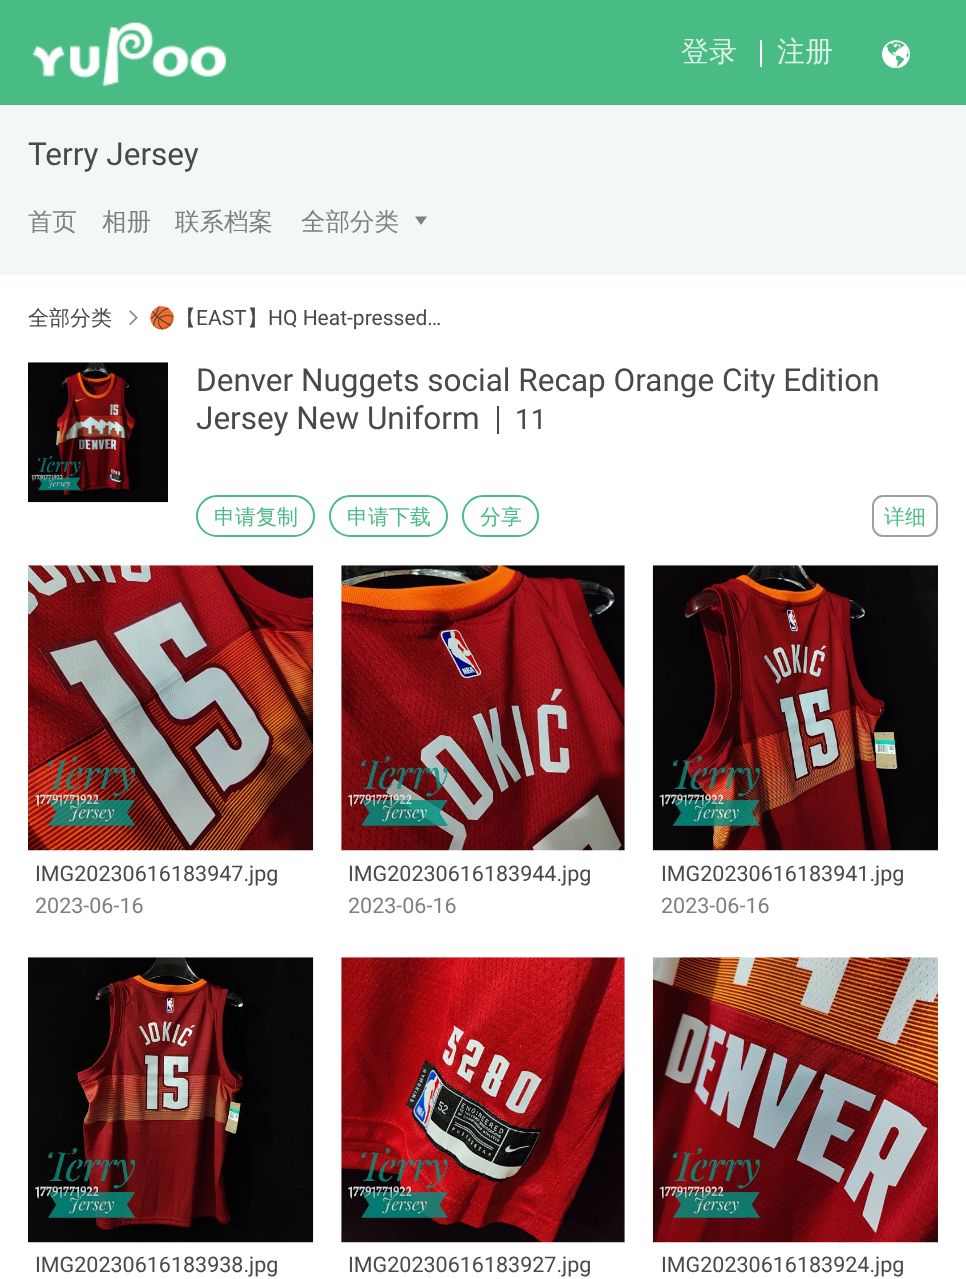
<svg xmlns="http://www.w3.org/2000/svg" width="966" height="1279">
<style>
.a{font:500 28px WenQuanYi Zen Hei;fill:#dbf2e7}
.b{font:31.5px Roboto;fill:#494949}
.c{font:500 24.5px WenQuanYi Zen Hei;fill:#7f7f7f}
.d{font:500 21px WenQuanYi Zen Hei;fill:#494949}
.e{font:21px Noto Color Emoji;fill:#494949}
.f{font:21px Roboto;fill:#494949}
.g{font:28px Roboto;fill:#494949}
.h{font:500 21px WenQuanYi Zen Hei;fill:#49bc85}
.i{font:21.5px Roboto;fill:#494949}
.j{font:21.5px Roboto;fill:#7f7f7f}
</style>
<rect width="100%" height="100%" fill="#fff"/>
<path fill="#49bc85" d="M0 0h966v105H0z"/>
<image href="1.png" x="33" y="22" width="193" height="64"/>
<path fill="#fff" d="M760 40h2v27H760z"/>
<image href="2.png" x="882" y="40" width="28" height="28"/>
<path fill="#f3f7f7" d="M0 105h966v170H0z"/>
<path fill="#7f7f7f" d="M421 225l-6-8.5h12z"/>
<image href="3.png" x="129" y="310" width="9" height="15"/>
<image href="4.png" x="28" y="362" width="140" height="141"/>
<path fill="#494949" d="M497 406h2v28H497z"/>
<rect fill="none" stroke="#49bc85" stroke-width="2" x="197" y="496" width="117" height="40" rx="20"/>
<rect fill="none" stroke="#49bc85" stroke-width="2" x="330" y="496" width="117" height="40" rx="20"/>
<rect fill="none" stroke="#49bc85" stroke-width="2" x="463" y="496" width="75" height="40" rx="20"/>
<rect fill="none" stroke="#9f9f9f" stroke-width="2" x="873" y="496" width="64" height="40" rx="10"/>
<image href="5.png" x="28" y="565" width="286" height="286"/>
<image href="6.png" x="341" y="565" width="284" height="286"/>
<image href="7.png" x="652" y="565" width="286" height="286"/>
<image href="8.png" x="28" y="957" width="286" height="286"/>
<image href="9.png" x="341" y="957" width="284" height="286"/>
<image href="10.png" x="652" y="957" width="286" height="286"/>
<text class="a" x="681" y="61">登录</text>
<text class="a" x="777" y="61">注册</text>
<text class="b" x="28" y="165">Terry Jersey</text>
<text class="c" x="28" y="230">首页</text>
<text class="c" x="102" y="230">相册</text>
<text class="c" x="175" y="230">联系档案</text>
<text class="c" x="301" y="230">全部分类</text>
<text class="d" x="28" y="325">全部分类</text>
<text class="e" x="149" y="325">🏀</text>
<text class="d" x="175" y="325">【</text>
<text class="f" x="196" y="325">EAST</text>
<text class="d" x="247" y="325">】</text>
<text class="f" x="268" y="325">HQ Heat-pressed…</text>
<text class="b" x="196" y="391">Denver Nuggets social Recap Orange City Edition</text>
<text class="b" x="196" y="429">Jersey New Uniform</text>
<text class="g" x="515" y="429">11</text>
<text class="h" x="214" y="524">申请复制</text>
<text class="h" x="347" y="524">申请下载</text>
<text class="h" x="480" y="524">分享</text>
<text class="h" x="884" y="524">详细</text>
<text class="i" x="35" y="881">IMG20230616183947.jpg</text>
<text class="j" x="35" y="913">2023-06-16</text>
<text class="i" x="348" y="881">IMG20230616183944.jpg</text>
<text class="j" x="348" y="913">2023-06-16</text>
<text class="i" x="661" y="881">IMG20230616183941.jpg</text>
<text class="j" x="661" y="913">2023-06-16</text>
<text class="i" x="35" y="1272">IMG20230616183938.jpg</text>
<text class="i" x="348" y="1272">IMG20230616183927.jpg</text>
<text class="i" x="661" y="1272">IMG20230616183924.jpg</text>
</svg>
